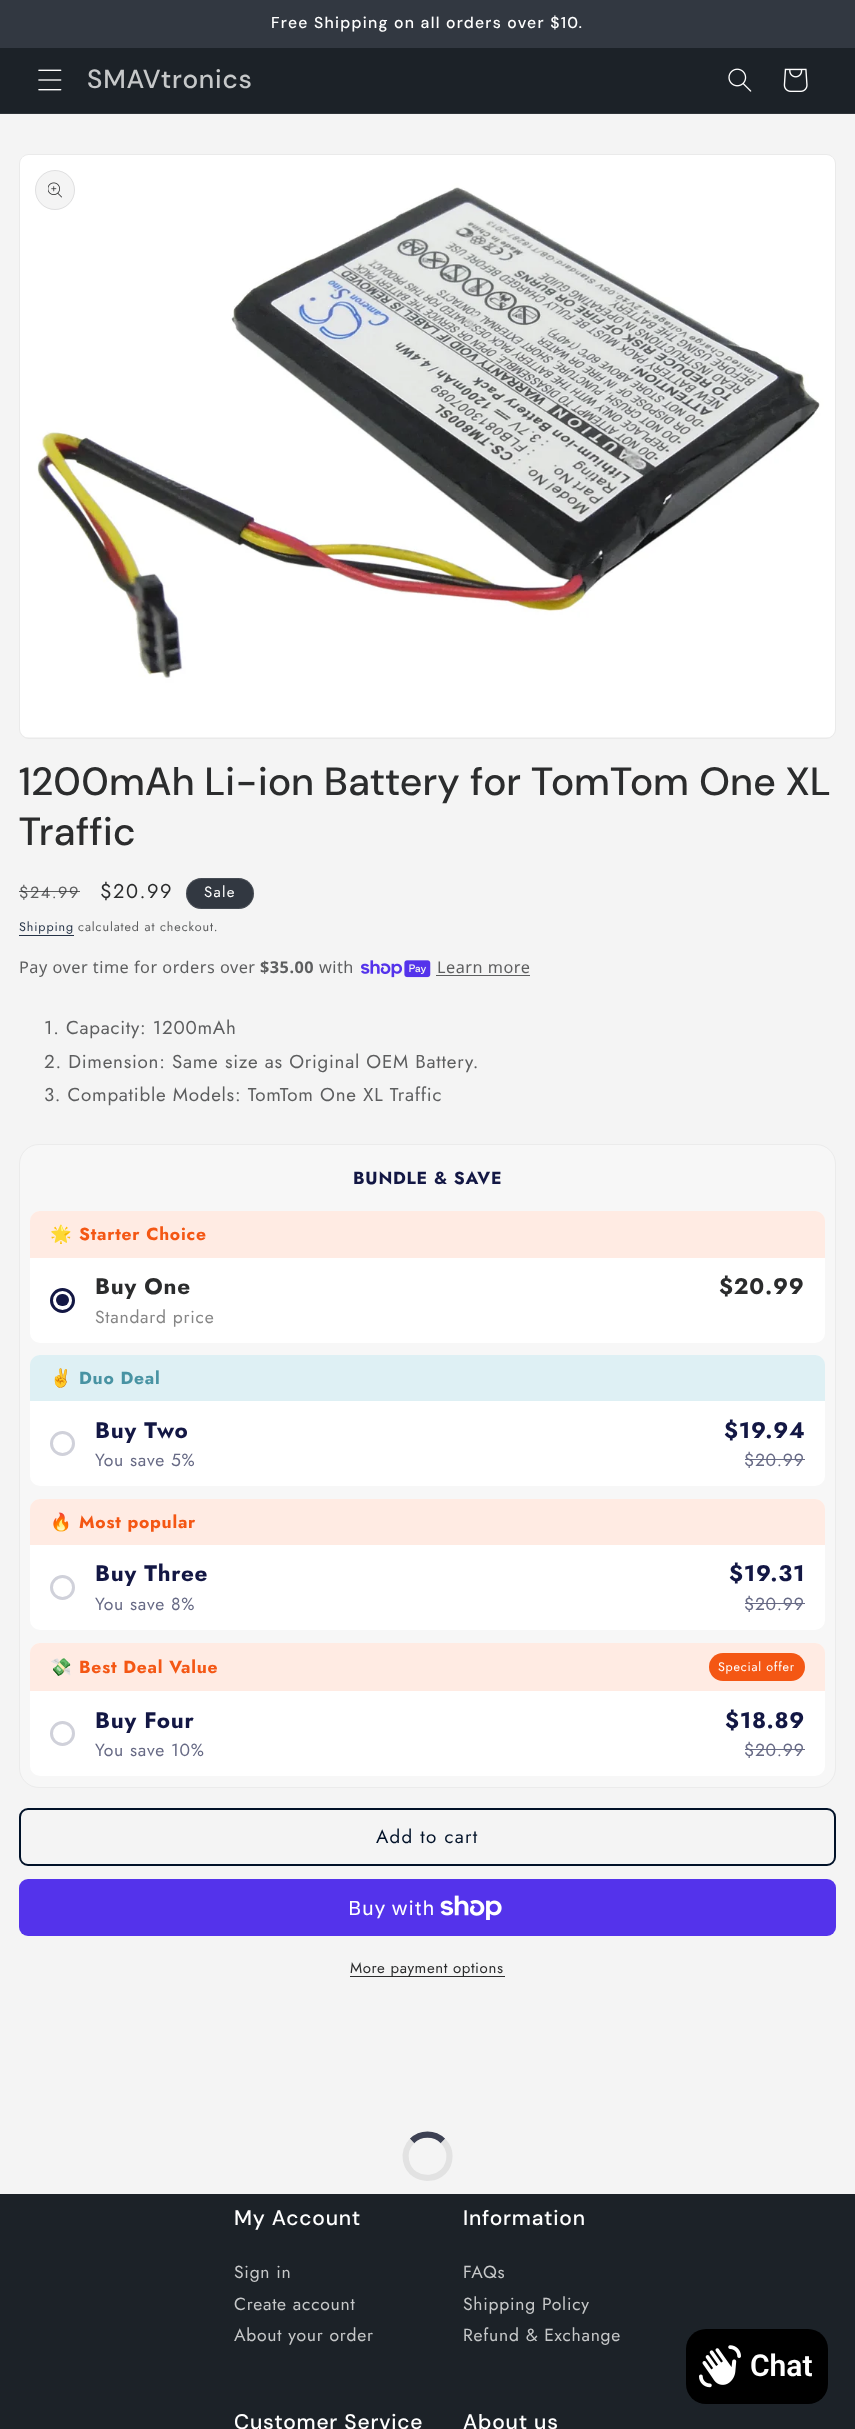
<svg xmlns="http://www.w3.org/2000/svg" width="855" height="2429">
<style>
.a{font:500 15.75px 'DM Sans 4';letter-spacing:1.25px;fill:#fff}
.b{font:500 26.25px 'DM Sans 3';letter-spacing:0.8px;fill:#c6c8c9}
.c{font:500 39.4px DM Sans;letter-spacing:0.8px;fill:#2b2c2d}
.d{font:16.25px Jost;letter-spacing:1.5px;fill:#5d5e5f}
.e{font:20px Jost;letter-spacing:1.5px;fill:#2b2c2d}
.f{font:15px Jost;letter-spacing:1.25px;fill:#fff}
.g{font:12.5px Jost;letter-spacing:0.9px;fill:#253347}
.h{font:12.5px Jost;letter-spacing:0.9px;fill:#5d5e5f}
.i{font:16.25px Noto Sans;letter-spacing:0.5px;fill:#5d5e5f}
.j{font:bold 16.25px Noto Sans;letter-spacing:0.5px;fill:#5d5e5f}
.k{font:18.75px Jost;letter-spacing:0.75px;fill:#5d5e5f}
.l{font:bold 17.5px Jost;letter-spacing:0.75px;fill:#131744}
.m{font:bold 17.5px Noto Color Emoji;letter-spacing:0.75px;fill:#f45714}
.n{font:bold 17.5px Jost;letter-spacing:0.75px;fill:#f45714}
.o{font:bold 22.5px Jost;letter-spacing:0.75px;fill:#2b2c2d}
.p{font:17.5px Jost;letter-spacing:0.75px;fill:#868686}
.q{font:bold 17.5px Noto Color Emoji;letter-spacing:0.75px;fill:#4893a3}
.r{font:bold 17.5px Jost;letter-spacing:0.75px;fill:#4893a3}
.s{font:bold 22.5px Jost;letter-spacing:0.75px;fill:#131744}
.t{font:17.5px Jost;letter-spacing:0.75px;fill:#676a85}
.u{font:12.5px Jost;letter-spacing:0.75px;fill:#fff}
.v{font:18.75px Jost;letter-spacing:1.25px;fill:#001128}
.w{font:20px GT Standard;letter-spacing:0.75px;fill:#fff}
.x{font:15px Jost;letter-spacing:0.6px;fill:#2b2c2d}
.y{font:500 21px 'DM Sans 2';letter-spacing:0.8px;fill:#fff}
.z{font:17.5px Jost;letter-spacing:0.75px;fill:#c6c8c9}
.a1{font:600 30px Roboto;fill:#fff}
</style>
<rect width="100%" height="100%" fill="#f4f4f4"/>
<path fill="#323841" d="M0 0h855v48H0z"/>
<path fill="#1c2228" d="M0 48h855v65H0z"/>
<path fill="#2e3439" d="M0 113h855v1H0z"/>
<image href="1.png" x="38" y="69" width="24" height="22"/>
<image href="2.png" x="728" y="68" width="24" height="24"/>
<image href="3.png" x="783" y="68" width="25" height="24"/>
<rect fill="none" stroke="#eaeaea" x="19.5" y="154.5" width="816" height="584" rx="9.5"/>
<image href="4.png" x="20" y="155" width="815" height="582"/>
<circle fill="#f4f4f4" cx="55" cy="190" r="20"/>
<circle fill="none" stroke="#2b2c2d1a" cx="55" cy="190" r="19.5"/>
<image href="5.png" x="48" y="182" width="14" height="16"/>
<rect fill="#323841" x="186" y="878" width="68" height="31" rx="15.5"/>
<rect fill="none" stroke="#ffffff1a" x="186.5" y="878.5" width="67" height="30" rx="15"/>
<path fill="#253347" d="M19 935h55v1H19z"/>
<image href="6.png" x="361" y="960" width="70" height="18"/>
<path fill="#5d5e5f" d="M436 975h94v1H436z"/>
<rect fill="#f7f7f7" stroke="#ebebeb" x="19.5" y="1144.5" width="816" height="643" rx="19.5"/>
<rect fill="#fff" x="30" y="1211" width="795" height="132" rx="10"/>
<path fill="#ffebe3" d="M40 1211h775c5.5 0 10 4.5 10 10v37h-795v-37c0-5.5 4.5-10 10-10z"/>
<circle fill="none" stroke="#131744" stroke-width="3" cx="62.5" cy="1300.5" r="11"/>
<rect fill="#131744" x="56" y="1294" width="13" height="12" rx="6"/>
<rect fill="#fff" x="30" y="1355" width="795" height="131" rx="10"/>
<path fill="#def0f4" d="M40 1355h775c5.5 0 10 4.5 10 10v36h-795v-36c0-5.5 4.5-10 10-10z"/>
<circle fill="none" stroke="#d0d1da" stroke-width="3" cx="62.5" cy="1443.5" r="11"/>
<path fill="#676a85" d="M745 1459h60v1H745z"/>
<rect fill="#fff" x="30" y="1499" width="795" height="131" rx="10"/>
<path fill="#ffebe3" d="M40 1499h775c5.5 0 10 4.5 10 10v36h-795v-36c0-5.5 4.5-10 10-10z"/>
<circle fill="none" stroke="#d0d1da" stroke-width="3" cx="62.5" cy="1587.5" r="11"/>
<path fill="#676a85" d="M745 1603h60v1H745z"/>
<rect fill="#fff" x="30" y="1643" width="795" height="133" rx="10"/>
<path fill="#ffebe3" d="M40 1643h775c5.5 0 10 4.5 10 10v38h-795v-38c0-5.5 4.5-10 10-10z"/>
<rect fill="#f45714" x="709" y="1653" width="96" height="28" rx="14"/>
<circle fill="none" stroke="#d0d1da" stroke-width="3" cx="62.5" cy="1733.5" r="11"/>
<path fill="#676a85" d="M745 1749h60v1H745z"/>
<rect fill="none" stroke="#001128" stroke-width="2" x="20" y="1809" width="815" height="56" rx="8"/>
<rect fill="#5433eb" x="19" y="1879" width="817" height="57" rx="9"/>
<image href="7.png" x="440" y="1895" width="62" height="25"/>
<path fill="#2b2c2d" d="M350 1976h155v1H350z"/>
<path fill="none" stroke="#3d4153" stroke-width="6.2" d="M412 2141c8.5-8.5 22.5-8.5 31 0"/>
<path fill="none" stroke="#e2e2e2" stroke-width="6.2" d="M443 2141c4 4 6.5 9.5 6.5 15c0 26.5-38.5 30-43.5 4.5c-1.5-7 1-14.5 6-19.5"/>
<path fill="#1c2228" d="M0 2194h855v235H0z"/>
<rect fill="#000" x="686" y="2329" width="142" height="75" rx="20"/>
<image href="8.png" x="699" y="2345" width="42" height="43"/>
<text class="a" x="271" y="28">Free Shipping on all orders over $10.</text>
<text class="b" x="87" y="88">SMAVtronics</text>
<text class="c" x="19" y="795">1200mAh Li-ion Battery for TomTom One XL</text>
<text class="c" x="19" y="845">Traffic</text>
<text class="d" x="19" y="898">$24.99</text>
<path fill="#2b2c2dbf" d="M19 891h61v1H19z"/>
<text class="e" x="100" y="898">$20.99</text>
<text class="f" x="204" y="897">Sale</text>
<text class="g" x="19" y="931">Shipping</text>
<text class="h" x="78" y="931">calculated at checkout.</text>
<text class="i" x="19" y="973">Pay over time for orders over</text>
<text class="j" x="260" y="973">$35.00</text>
<text class="i" x="319" y="973">with</text>
<text class="i" x="437" y="973">Learn more</text>
<text class="k" x="44" y="1034">1. Capacity: 1200mAh</text>
<text class="k" x="44" y="1068">2. Dimension: Same size as Original OEM Battery.</text>
<text class="k" x="44" y="1101">3. Compatible Models: TomTom One XL Traffic</text>
<text class="l" x="353" y="1184">BUNDLE &amp; SAVE</text>
<text class="m" x="50" y="1240">🌟</text>
<text class="n" x="79" y="1240">Starter Choice</text>
<text class="o" x="95" y="1294">Buy One</text>
<text class="p" x="95" y="1323">Standard price</text>
<text class="o" x="719" y="1294">$20.99</text>
<text class="q" x="50" y="1384">✌️</text>
<text class="r" x="79" y="1384">Duo Deal</text>
<text class="s" x="95" y="1438">Buy Two</text>
<text class="t" x="95" y="1466">You save 5%</text>
<text class="s" x="724" y="1438">$19.94</text>
<text class="t" x="744" y="1466">$20.99</text>
<text class="m" x="50" y="1528">🔥</text>
<text class="n" x="79" y="1528">Most popular</text>
<text class="s" x="95" y="1581">Buy Three</text>
<text class="t" x="95" y="1610">You save 8%</text>
<text class="s" x="729" y="1581">$19.31</text>
<text class="t" x="744" y="1610">$20.99</text>
<text class="m" x="50" y="1673">💸</text>
<text class="n" x="79" y="1673">Best Deal Value</text>
<text class="u" x="718" y="1671">Special offer</text>
<text class="s" x="95" y="1728">Buy Four</text>
<text class="t" x="95" y="1756">You save 10%</text>
<text class="s" x="725" y="1728">$18.89</text>
<text class="t" x="744" y="1756">$20.99</text>
<text class="v" x="376" y="1843">Add to cart</text>
<text class="w" x="348" y="1915">Buy with</text>
<text class="x" x="350" y="1973">More payment options</text>
<text class="y" x="234" y="2225">My Account</text>
<text class="z" x="234" y="2278">Sign in</text>
<text class="z" x="234" y="2310">Create account</text>
<text class="z" x="234" y="2341">About your order</text>
<text class="y" x="463" y="2225">Information</text>
<text class="z" x="463" y="2278">FAQs</text>
<text class="z" x="463" y="2310">Shipping Policy</text>
<text class="z" x="463" y="2341">Refund &amp; Exchange</text>
<text class="y" x="234" y="2429">Customer Service</text>
<text class="y" x="463" y="2429">About us</text>
<text class="a1" x="750" y="2376">Chat</text>
</svg>
